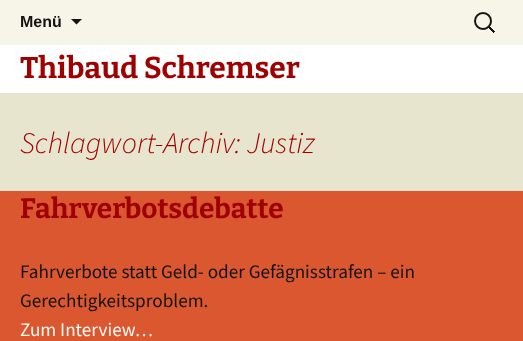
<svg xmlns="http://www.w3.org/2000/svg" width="523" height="341">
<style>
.a{font:bold 16px Liberation Sans;fill:#141412}
.b{font:bold 30px Bitter;fill:#9f0000}
.c{font:italic 300 30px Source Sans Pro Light;fill:#9f0000}
.d{font:bold 28px Bitter;fill:#9f0000}
.e{font:19.2px Source Sans Pro;fill:#141412}
.f{font:19.2px Source Sans Pro;fill:#fbfaf3}
</style>
<rect width="100%" height="100%" fill="#fff"/>
<path fill="#f7f5e7" d="M0 0h523v45H0z"/>
<path fill="#141412" d="M71 19l5.5 5.5l5.5-5.5z"/>
<image href="1.png" x="474" y="12" width="21" height="21"/>
<path fill="#e8e5ce" d="M0 93h523v98H0z"/>
<path fill="#db572f" d="M0 191h523v150H0z"/>
<text class="a" x="20" y="27">Menü</text>
<text class="b" x="20" y="78">Thibaud Schremser</text>
<text class="c" x="20" y="153">Schlagwort-Archiv: Justiz</text>
<text class="d" x="20" y="218">Fahrverbotsdebatte</text>
<text class="e" x="20" y="278">Fahrverbote statt Geld- oder Gefägnisstrafen – ein</text>
<text class="e" x="20" y="307">Gerechtigkeitsproblem.</text>
<text class="f" x="20" y="336">Zum Interview…</text>
</svg>
